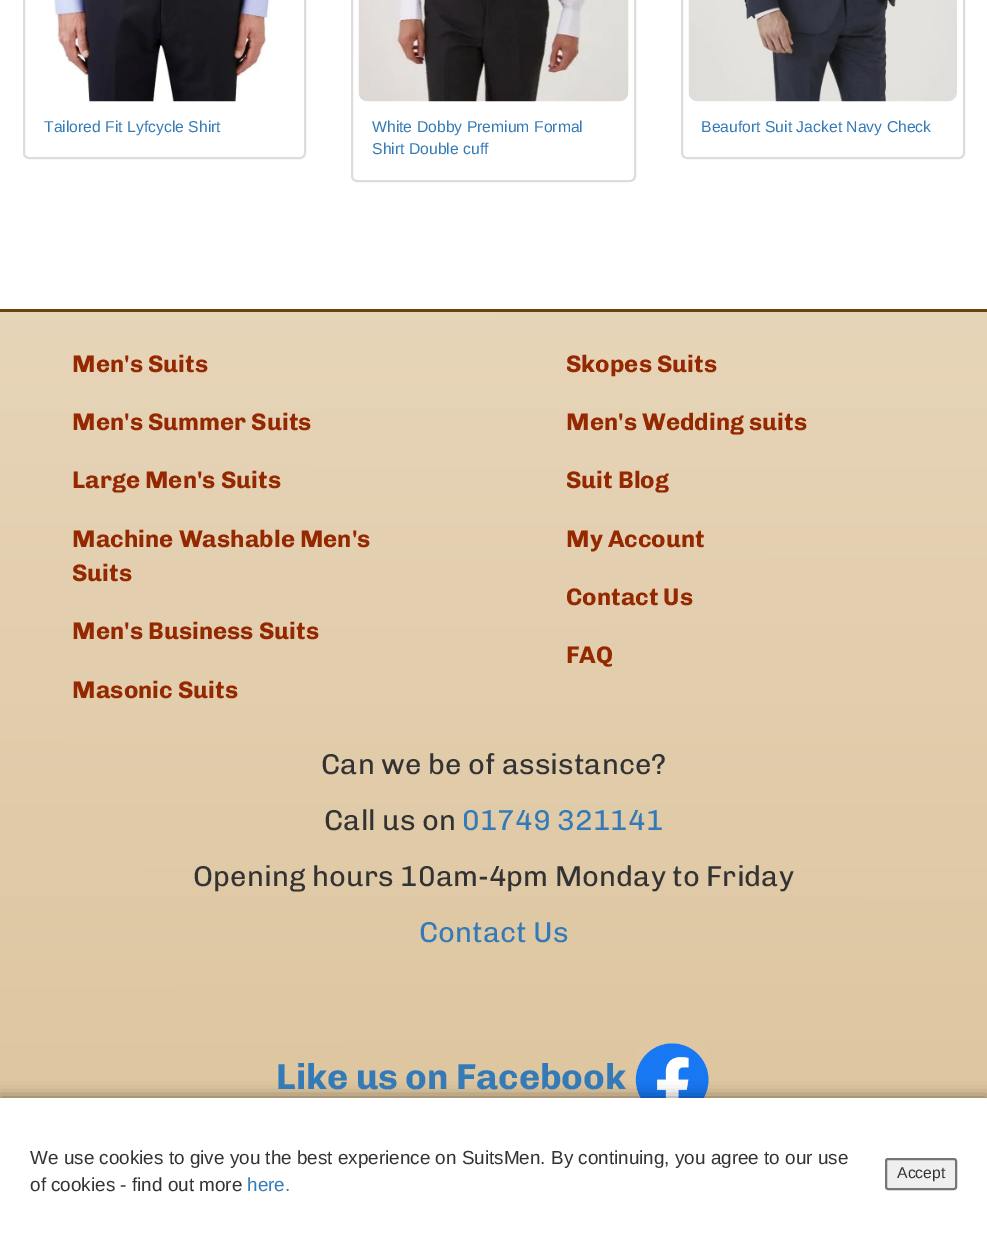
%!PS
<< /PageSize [987 1248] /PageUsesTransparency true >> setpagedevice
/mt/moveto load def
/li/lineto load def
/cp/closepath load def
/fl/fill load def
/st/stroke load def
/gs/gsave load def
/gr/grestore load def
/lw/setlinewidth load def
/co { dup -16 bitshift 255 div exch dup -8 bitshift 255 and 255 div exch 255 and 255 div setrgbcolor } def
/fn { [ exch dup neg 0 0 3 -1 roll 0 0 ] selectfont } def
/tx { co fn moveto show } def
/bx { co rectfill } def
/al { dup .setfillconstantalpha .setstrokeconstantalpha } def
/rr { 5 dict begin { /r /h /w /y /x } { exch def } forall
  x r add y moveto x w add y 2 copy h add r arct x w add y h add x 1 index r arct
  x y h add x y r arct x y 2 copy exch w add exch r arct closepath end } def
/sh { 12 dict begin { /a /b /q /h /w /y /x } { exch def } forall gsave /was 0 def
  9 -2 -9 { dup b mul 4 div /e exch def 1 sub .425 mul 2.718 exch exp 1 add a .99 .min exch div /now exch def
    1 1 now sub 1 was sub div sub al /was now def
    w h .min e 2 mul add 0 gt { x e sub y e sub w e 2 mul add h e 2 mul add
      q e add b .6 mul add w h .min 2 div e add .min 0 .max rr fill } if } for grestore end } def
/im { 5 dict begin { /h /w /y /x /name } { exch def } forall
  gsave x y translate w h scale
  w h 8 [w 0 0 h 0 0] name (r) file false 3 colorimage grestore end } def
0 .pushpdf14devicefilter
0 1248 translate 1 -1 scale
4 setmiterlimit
0 0 987 1248 16#FFFFFF bx
16#DDDDDD co
2 lw
24 -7 281 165 5 rr st
(media/1.raw) 54 0 218 102 im
352 -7 283 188 5 rr st
(media/2.raw) 358 0 271 102 im
682 -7 282 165 5 rr st
(media/3.raw) 688 0 269 102 im
gs 0 312 mt 987 312 li 987 1098 li 0 1098 li cp clip newpath
<< /ShadingType 2 /ColorSpace /DeviceRGB /Coords [493 312 494 1248] /Extend [true true] /Function << /FunctionType 2 /Domain [0 1] /C0 [.906 .835 .725] /C1 [.863 .765 .608] /N 1 >> >> shfill gr
0 309 987 3 16#6A4308 bx
(media/4.raw) 635 1043 74 55 im
16#000000 co
0 1098 987 150 0 7.5 .5 sh
0 1098 987 150 16#FFFFFF bx
16#EFEFEF co
886 1159 70 30 2 rr gs fl gr
16#767676 co
st
(Tailored Fit Lyfcycle Shirt) 44 132 /LiberationSans-Regular 15.75 16#337AB7 tx
(White Dobby Premium Formal) 372 132 /LiberationSans-Regular 15.75 16#337AB7 tx
(Shirt Double cuff) 372 154 /LiberationSans-Regular 15.75 16#337AB7 tx
(Beaufort Suit Jacket Navy Check) 701 132 /LiberationSans-Regular 15.75 16#337AB7 tx
(Men's Suits) 72 372 /Chivo-Bold 24 16#942800 tx
(Men's Summer Suits) 72 430 /Chivo-Bold 24 16#942800 tx
(Large Men's Suits) 72 488 /Chivo-Bold 24 16#942800 tx
(Skopes Suits) 566 372 /Chivo-Bold 24 16#942800 tx
(Men's Wedding suits) 566 430 /Chivo-Bold 24 16#942800 tx
(Suit Blog) 566 488 /Chivo-Bold 24 16#942800 tx
(Machine Washable Men's) 72 547 /Chivo-Bold 24 16#942800 tx
(Suits) 72 581 /Chivo-Bold 24 16#942800 tx
(Men's Business Suits) 72 639 /Chivo-Bold 24 16#942800 tx
(Masonic Suits) 72 698 /Chivo-Bold 24 16#942800 tx
(My Account) 566 547 /Chivo-Bold 24 16#942800 tx
(Contact Us) 566 605 /Chivo-Bold 24 16#942800 tx
(FAQ) 566 663 /Chivo-Bold 24 16#942800 tx
(Can we be of assistance?) 321 774 /Chivo-Regular 28.8 16#333333 tx
(Call us on) 324 830 /Chivo-Regular 28.8 16#333333 tx
(01749 321141) 462 830 /Chivo-Regular 28.8 16#337AB7 tx
(Opening hours 10am-4pm Monday to Friday) 193 886 /Chivo-Regular 28.8 16#333333 tx
(Contact Us) 419 942 /Chivo-Regular 28.8 16#337AB7 tx
(Like us on Facebook) 276 1089 /Chivo-Bold 36 16#337AB7 tx
(We use cookies to give you the best experience on SuitsMen. By continuing, you agree to our use) 30 1164 /LiberationSans-Regular 18.9 16#333333 tx
(of cookies - find out more) 30 1191 /LiberationSans-Regular 18.9 16#333333 tx
(here.) 247 1191 /LiberationSans-Regular 18.9 16#337AB7 tx
(Accept) 897 1178 /LiberationSans-Regular 15.75 16#333333 tx
.poppdf14devicefilter showpage
